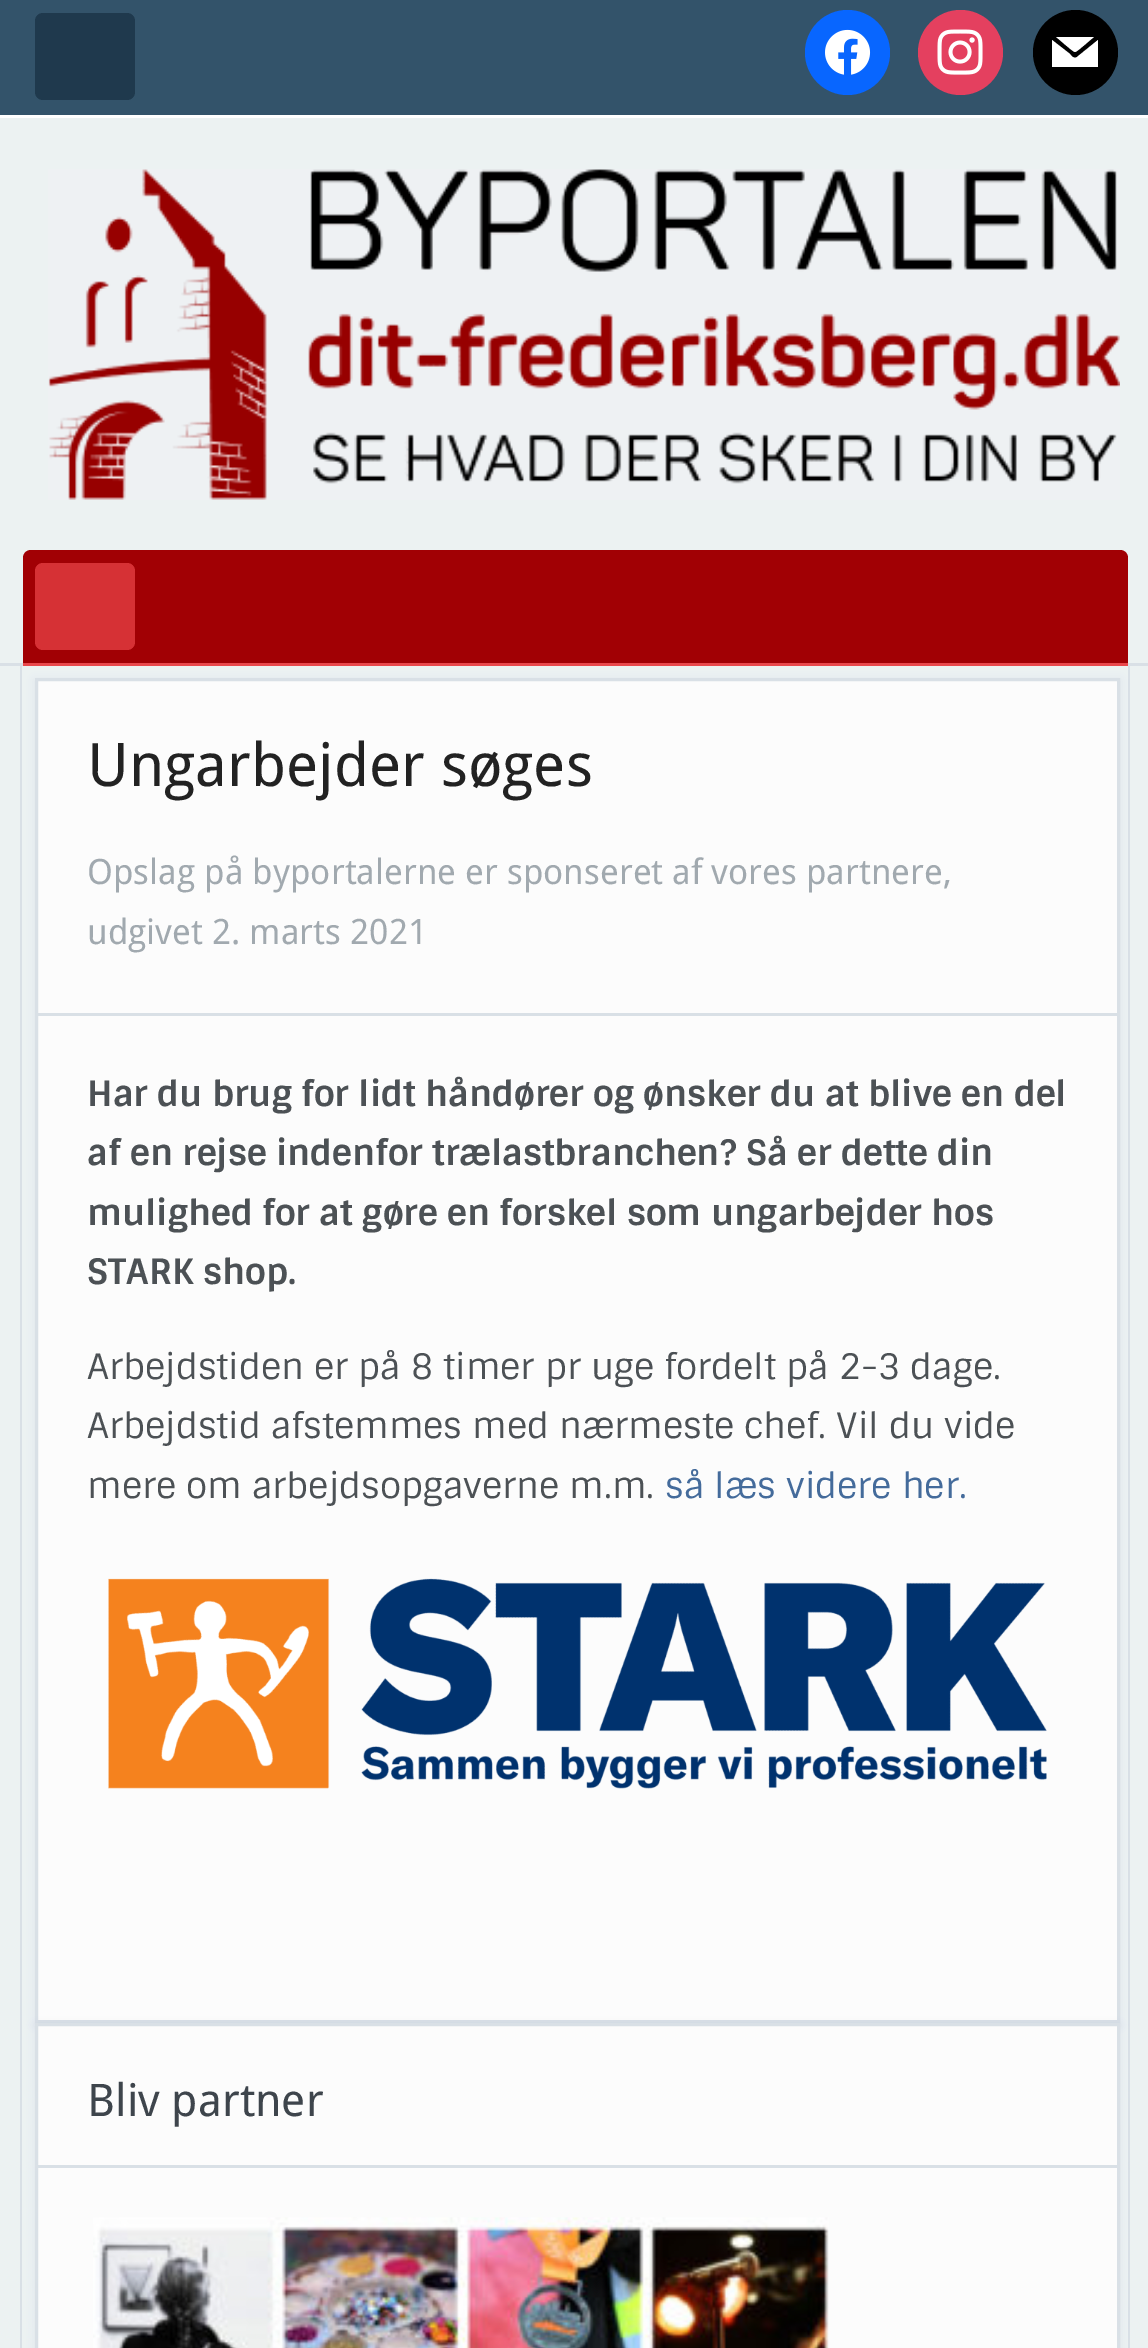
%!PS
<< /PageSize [1148 2348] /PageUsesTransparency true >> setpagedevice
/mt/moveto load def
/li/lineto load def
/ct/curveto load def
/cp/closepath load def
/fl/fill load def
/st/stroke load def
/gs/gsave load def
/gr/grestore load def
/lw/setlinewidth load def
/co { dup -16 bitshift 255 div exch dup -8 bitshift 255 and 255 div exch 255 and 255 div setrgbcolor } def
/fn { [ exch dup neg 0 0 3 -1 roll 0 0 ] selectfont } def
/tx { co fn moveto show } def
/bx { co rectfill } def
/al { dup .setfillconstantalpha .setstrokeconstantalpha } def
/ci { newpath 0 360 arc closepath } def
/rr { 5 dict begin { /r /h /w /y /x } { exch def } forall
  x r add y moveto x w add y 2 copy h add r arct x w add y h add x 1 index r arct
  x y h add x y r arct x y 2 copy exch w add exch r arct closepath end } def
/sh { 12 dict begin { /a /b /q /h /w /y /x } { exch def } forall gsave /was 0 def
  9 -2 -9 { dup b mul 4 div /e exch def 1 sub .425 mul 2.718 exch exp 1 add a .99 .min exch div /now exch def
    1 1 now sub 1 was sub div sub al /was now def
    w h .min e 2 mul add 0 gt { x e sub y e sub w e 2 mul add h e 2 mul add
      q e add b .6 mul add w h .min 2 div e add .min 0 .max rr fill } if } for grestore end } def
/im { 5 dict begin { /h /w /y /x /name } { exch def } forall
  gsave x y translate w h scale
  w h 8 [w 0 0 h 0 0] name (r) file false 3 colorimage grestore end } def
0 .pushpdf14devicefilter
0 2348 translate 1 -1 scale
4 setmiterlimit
0 0 1148 2348 16#ECF2F2 bx
16#D9E0E6 co
20 665 mt 1130 665 li 1130 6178 li 1130 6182 1127 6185 1122 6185 ct 28 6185 li 23 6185 20 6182 20 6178 ct cp 22 665 mt 1128 665 li 1128 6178 li 1128 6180 1125 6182 1122 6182 ct 28 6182 li 25 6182 22 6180 22 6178 ct cp eofill
0 663 1148 3 16#D9E0E6 bx
0 0 1148 115 16#33536A bx
0 115 1148 3 16#FFFFFF bx
16#1F394D co
35 13 100 87 8 rr fl
16#0866FF co
847.5 52.5 42.5 ci fl
(media/1.raw) 825 29 46 46 im
16#E4405F co
960.5 52.5 42.5 ci fl
(media/2.raw) 937 29 46 46 im
16#000000 co
1075.5 52.5 42.5 ci fl
16#FFFFFF co
1077 57 mt 1074 59 1071 56 1070 54 ct 1052 40 li 1052 67 li 1098 67 li 1098 40 li cp 1075 52 mt 1077 52 1091 39 1094 37 ct 1056 37 li 1059 39 1073 52 1075 52 ct cp fl
(media/3.raw) 48 169 1072 331 im
16#A10004 co
31 550 mt 1120 550 li 1124.5 550 1128 553.5 1128 558 ct 1128 665 li 23 665 li 23 558 li 23 553.5 26.5 550 31 550 ct cp fl
23 663 1105 3 16#E9484C bx
16#D63135 co
35 563 100 87 8 rr fl
16#4A5F74 co
35 680 1085 1345 0 4 .08 sh
16#FCFCFC co
36.5 679.5 mt 1118.5 679.5 li 1118.5 2021.5 li 36.5 2021.5 li cp gs fl gr
16#D9E0E6 co
3 lw
st
38 1013 1080 3 16#D9E0E6 bx
(media/4.raw) 108 1578 939 211 im
16#4A5F74 co
35 2025 1085 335 0 4 .08 sh
16#FCFCFC co
36.5 2024.5 mt 1118.5 2024.5 li 1118.5 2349.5 li 36.5 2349.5 li cp gs fl gr
16#D9E0E6 co
st
38 2165 1080 3 16#D9E0E6 bx
(media/5.raw) 93 2217 736 131 im
(Ungarbejder søges) 87 786 /DroidSans-Regular 60 16#222222 tx
(Opslag på byportalerne er sponseret af vores partnere,) 87 884 /DroidSans-Regular 35 16#A1A9AF tx
(udgivet 2. marts 2021) 87 944 /DroidSans-Regular 35 16#A1A9AF tx
(Har du brug for lidt håndører og ønsker du at blive en del) 87 1106 /Sintony-Bold 35 16#4C5155 tx
(af en rejse indenfor trælastbranchen? Så er dette din) 87 1165 /Sintony-Bold 35 16#4C5155 tx
(mulighed for at gøre en forskel som ungarbejder hos) 87 1225 /Sintony-Bold 35 16#4C5155 tx
(STARK shop.) 87 1284 /Sintony-Bold 35 16#4C5155 tx
(Arbejdstiden er på 8 timer pr uge fordelt på 2-3 dage.) 87 1379 /Sintony-Regular 35 16#4C5155 tx
(Arbejdstid afstemmes med nærmeste chef. Vil du vide) 87 1438 /Sintony-Regular 35 16#4C5155 tx
(mere om arbejdsopgaverne m.m.) 87 1498 /Sintony-Regular 35 16#4C5155 tx
(så læs videre her.) 665 1498 /Sintony-Regular 35 16#446B9B tx
(Bliv partner) 87 2116 /DroidSans-Regular 45 16#3E454C tx
.poppdf14devicefilter showpage
